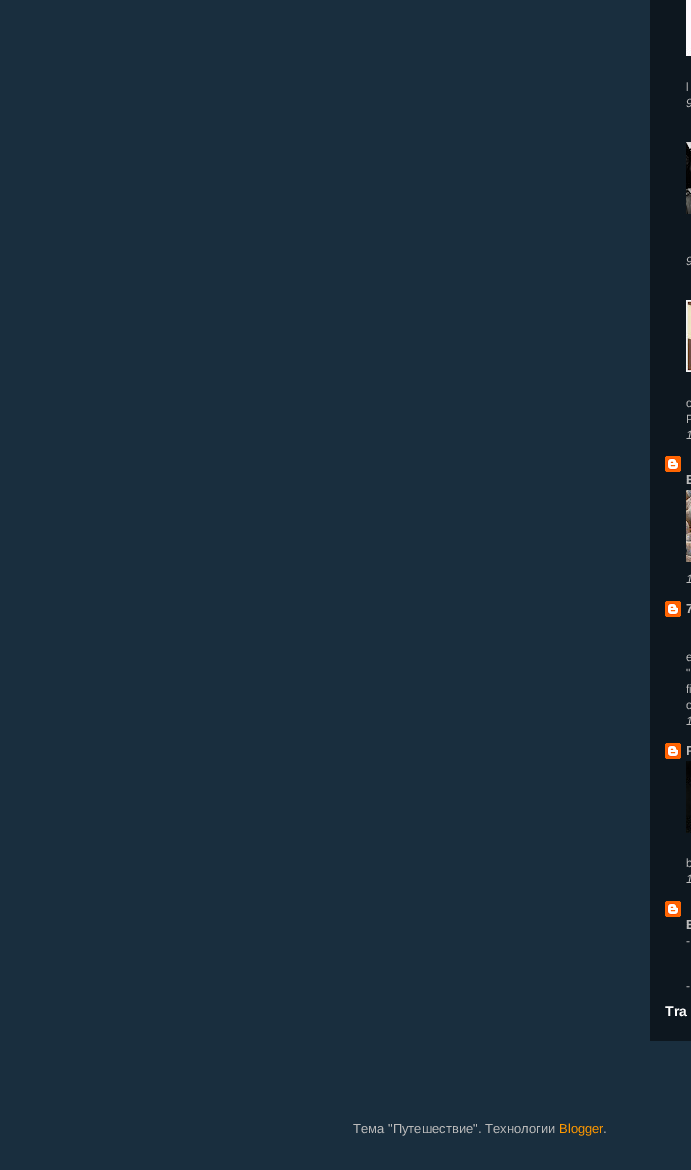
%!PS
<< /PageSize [691 1170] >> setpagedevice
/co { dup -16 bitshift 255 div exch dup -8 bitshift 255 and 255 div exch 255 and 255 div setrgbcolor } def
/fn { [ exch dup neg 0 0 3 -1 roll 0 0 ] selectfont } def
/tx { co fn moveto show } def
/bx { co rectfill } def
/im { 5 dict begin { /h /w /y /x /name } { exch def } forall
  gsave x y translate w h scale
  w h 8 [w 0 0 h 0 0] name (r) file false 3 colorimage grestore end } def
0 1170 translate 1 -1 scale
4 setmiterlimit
0 0 691 1170 16#192E3E bx
650 0 41 1041 16#0D171F bx
(media/1.raw) 686 0 5 56 im
(media/2.raw) 686 142 5 72 im
(media/3.raw) 686 300 5 72 im
(media/4.raw) 665 456 16 16 im
(media/5.raw) 686 490 5 72 im
(media/4.raw) 665 601 16 16 im
(media/4.raw) 665 743 16 16 im
(media/6.raw) 686 761 5 72 im
(media/4.raw) 665 901 16 16 im
(l) 686 91 /LiberationSans-Regular 12 16#BBBBBB tx
(9) 686 107 /LiberationSans-Italic 12 16#BBBBBB tx
(9) 686 265 /LiberationSans-Italic 12 16#BBBBBB tx
(o) 686 407 /LiberationSans-Regular 12 16#BBBBBB tx
(P) 686 423 /LiberationSans-Regular 12 16#BBBBBB tx
(1) 686 439 /LiberationSans-Italic 12 16#BBBBBB tx
(E) 686 484 /LiberationSans-Bold 13 16#BBBBBB tx
(1) 686 583 /LiberationSans-Italic 12 16#BBBBBB tx
(7) 686 613 /LiberationSans-Bold 13 16#BBBBBB tx
(e) 686 661 /LiberationSans-Regular 12 16#BBBBBB tx
(") 686 677 /LiberationSans-Regular 12 16#BBBBBB tx
(fi) 686 693 /LiberationSans-Regular 12 16#BBBBBB tx
(o) 686 709 /LiberationSans-Regular 12 16#BBBBBB tx
(1) 686 725 /LiberationSans-Italic 12 16#BBBBBB tx
(P) 686 755 /LiberationSans-Bold 13 16#BBBBBB tx
(b) 686 867 /LiberationSans-Regular 12 16#BBBBBB tx
(1) 686 883 /LiberationSans-Italic 12 16#BBBBBB tx
(E) 686 929 /LiberationSans-Bold 13 16#BBBBBB tx
(-) 686 945 /LiberationSans-Regular 12 16#BBBBBB tx
(-) 686 990 /LiberationSans-Regular 12 16#BBBBBB tx
(Tra) 665 1016 /LiberationSans-Bold 14 16#FFFFFF tx
(Тема "Путешествие". Технологии) 353 1133 /LiberationSans-Regular 13 16#BBBBBB tx
(Blogger) 559 1133 /LiberationSans-Regular 13 16#FF9900 tx
(.) 603 1133 /LiberationSans-Regular 13 16#BBBBBB tx
showpage
